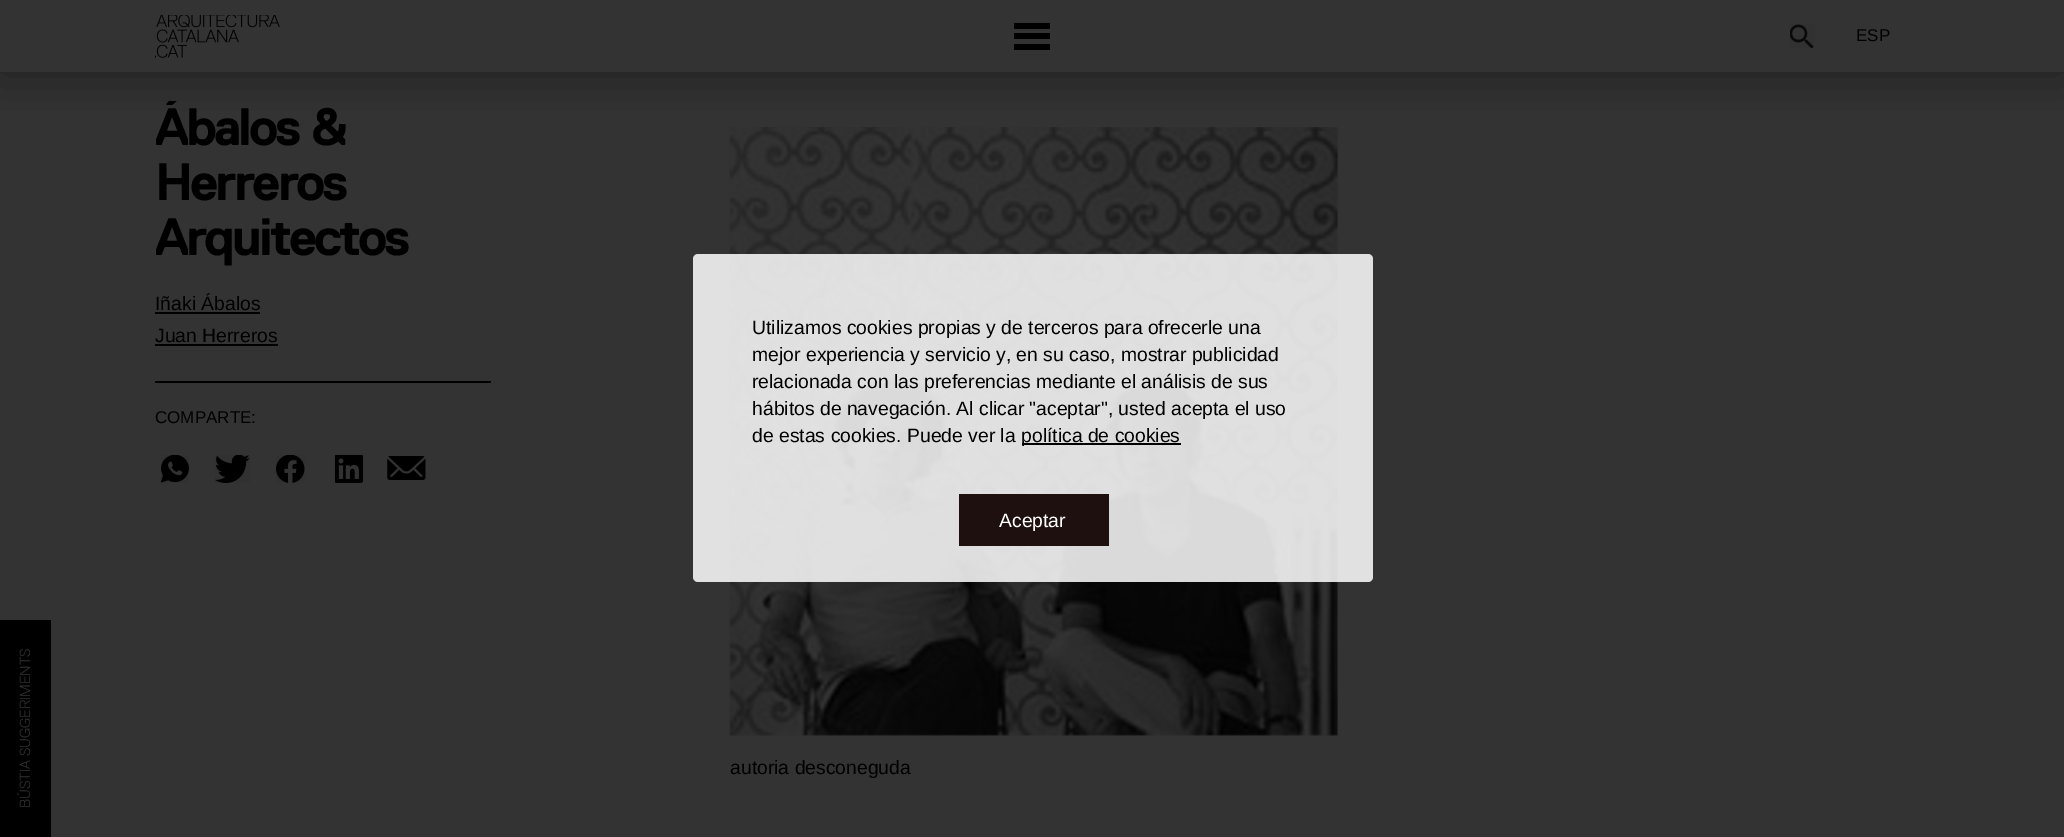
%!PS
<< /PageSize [2064 837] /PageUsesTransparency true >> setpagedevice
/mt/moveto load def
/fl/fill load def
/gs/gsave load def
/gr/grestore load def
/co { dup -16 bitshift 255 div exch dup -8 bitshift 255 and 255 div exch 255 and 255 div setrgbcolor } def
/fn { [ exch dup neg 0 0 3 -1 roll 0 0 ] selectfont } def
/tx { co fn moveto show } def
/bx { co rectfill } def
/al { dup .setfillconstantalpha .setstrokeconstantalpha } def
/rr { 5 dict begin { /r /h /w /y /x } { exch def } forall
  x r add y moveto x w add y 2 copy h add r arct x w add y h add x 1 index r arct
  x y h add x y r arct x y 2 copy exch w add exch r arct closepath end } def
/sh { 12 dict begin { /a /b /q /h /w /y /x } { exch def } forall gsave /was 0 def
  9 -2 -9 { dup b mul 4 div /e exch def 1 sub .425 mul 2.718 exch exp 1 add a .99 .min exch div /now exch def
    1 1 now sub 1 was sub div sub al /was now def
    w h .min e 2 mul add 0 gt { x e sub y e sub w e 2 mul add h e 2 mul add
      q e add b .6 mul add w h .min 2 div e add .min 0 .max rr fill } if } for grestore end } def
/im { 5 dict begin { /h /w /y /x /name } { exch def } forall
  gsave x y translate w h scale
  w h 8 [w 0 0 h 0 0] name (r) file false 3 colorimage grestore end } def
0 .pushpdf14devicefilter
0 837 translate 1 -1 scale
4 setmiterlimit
0 0 2064 837 16#333333 bx
(media/8.raw) 729 127 609 609 im
gs
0 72 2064 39 rectclip
16#000000 co
0 0 2064 72 0 24 .4 sh
gr
(media/1.raw) 155 15 125 43 im
1014 33 36 6 16#000000 bx
1014 23 36 6 16#000000 bx
1014 44 36 6 16#000000 bx
(media/2.raw) 1790 24 24 24 im
0 620 51 217 16#000000 bx
155 312 105 2 16#000000 bx
155 344 123 2 16#000000 bx
155 381 336 2 16#000000 bx
(media/3.raw) 161 455 28 28 im
(media/4.raw) 215 455 35 28 im
(media/5.raw) 276 455 29 28 im
(media/6.raw) 335 455 28 28 im
(media/7.raw) 387 456 39 24 im
0.85 al
16#FFFFFF co
693 254 680 328 5 rr fl
1 al
1022 443 159 2 16#000000 bx
959 494 150 52 16#1F1010 bx
(ESP) 1856 41 /LiberationSans-Regular 17 16#000000 tx
/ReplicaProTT-Light 14.5 fn
16#333333 co
gs 30 808 translate -90 rotate 0 0 mt (BÚSTIA SUGGERIMENTS) show gr
gs
155 101 336 168 rectclip
/ReplicaProTT-Bold 52.5 fn
16#000000 co
155 145 mt -3.1 0 (Ábalos &) ashow
gr
/ReplicaProTT-Bold 52.5 fn
16#000000 co
155 200 mt -3.1 0 (Herreros) ashow
155 255 mt -3.1 0 (Arquitectos) ashow
(Iñaki Ábalos) 155 310 /LiberationSans-Regular 19.35 16#000000 tx
(Juan Herreros) 155 342 /LiberationSans-Regular 19.35 16#000000 tx
(COMPARTE:) 155 423 /LiberationSans-Regular 17 16#000000 tx
(autoria desconeguda) 730 774 /LiberationSans-Regular 19.35 16#000000 tx
(Utilizamos cookies propias y de terceros para ofrecerle una) 752 334 /LiberationSans-Regular 19.35 16#000000 tx
(mejor experiencia y servicio y, en su caso, mostrar publicidad) 752 361 /LiberationSans-Regular 19.35 16#000000 tx
(relacionada con las preferencias mediante el análisis de sus) 752 388 /LiberationSans-Regular 19.35 16#000000 tx
(hábitos de navegación. Al clicar "aceptar", usted acepta el uso) 752 415 /LiberationSans-Regular 19.35 16#000000 tx
(de estas cookies. Puede ver la) 752 442 /LiberationSans-Regular 19.35 16#000000 tx
(política de cookies) 1021 442 /LiberationSans-Regular 19.35 16#000000 tx
(Aceptar) 999 527 /LiberationSans-Regular 19.35 16#FFFFFF tx
.poppdf14devicefilter showpage
